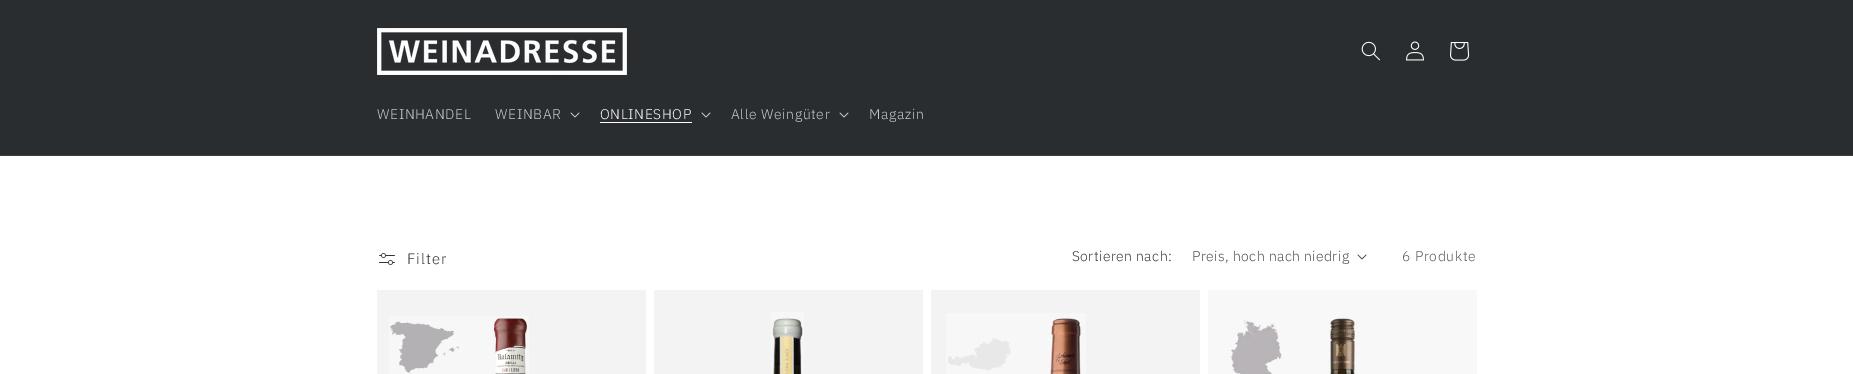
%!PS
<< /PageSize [1853 374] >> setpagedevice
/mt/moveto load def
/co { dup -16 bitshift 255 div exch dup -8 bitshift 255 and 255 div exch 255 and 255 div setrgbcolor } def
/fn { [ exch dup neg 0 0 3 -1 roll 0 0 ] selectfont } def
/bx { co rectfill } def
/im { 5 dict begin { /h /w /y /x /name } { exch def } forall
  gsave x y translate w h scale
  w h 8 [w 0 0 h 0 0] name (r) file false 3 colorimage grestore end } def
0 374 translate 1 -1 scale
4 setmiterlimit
0 0 1853 374 16#FFFFFF bx
0 0 1853 155 16#292D30 bx
0 155 1853 1 16#3A3E41 bx
(media/1.raw) 377 28 250 47 im
(media/2.raw) 1361 41 19 20 im
(media/3.raw) 1406 41 18 20 im
(media/4.raw) 1450 42 20 19 im
(media/5.raw) 570 112 10 6 im
600 122 92 1 16#FFFFFF bx
(media/5.raw) 701 112 10 6 im
(media/5.raw) 839 112 10 6 im
(media/6.raw) 379 253 16 12 im
(media/7.raw) 1357 254 10 6 im
377 290 269 84 16#F3F3F3 bx
(media/8.raw) 389 316 140 58 im
654 290 269 84 16#F3F3F3 bx
(media/9.raw) 771 312 33 62 im
931 290 269 84 16#F3F3F3 bx
(media/10.raw) 946 313 140 61 im
(media/11.raw) 1208 290 269 84 im
/IBMPlexSans-Light 14 fn
16#CACBCB co
377 119 mt .6 0 (WEINHANDEL) ashow
495 119 mt .6 0 (WEINBAR) ashow
16#FFFFFF co
600 119 mt .6 0 (ONLINESHOP) ashow
16#CACBCB co
731 119 mt .6 0 (Alle Weingüter) ashow
869 119 mt .6 0 (Magazin) ashow
/IBMPlexSans-Light 15 fn
16#363636 co
407 264 mt 1 0 (Filter) ashow
/IBMPlexSans-Light 14 fn
1072 261 mt .4 0 (Sortieren nach:) ashow
16#4D4D4D co
1192 261 mt .4 0 (Preis, hoch nach niedrig) ashow
16#595959 co
1402 261 mt .6 0 (6 Produkte) ashow
showpage
